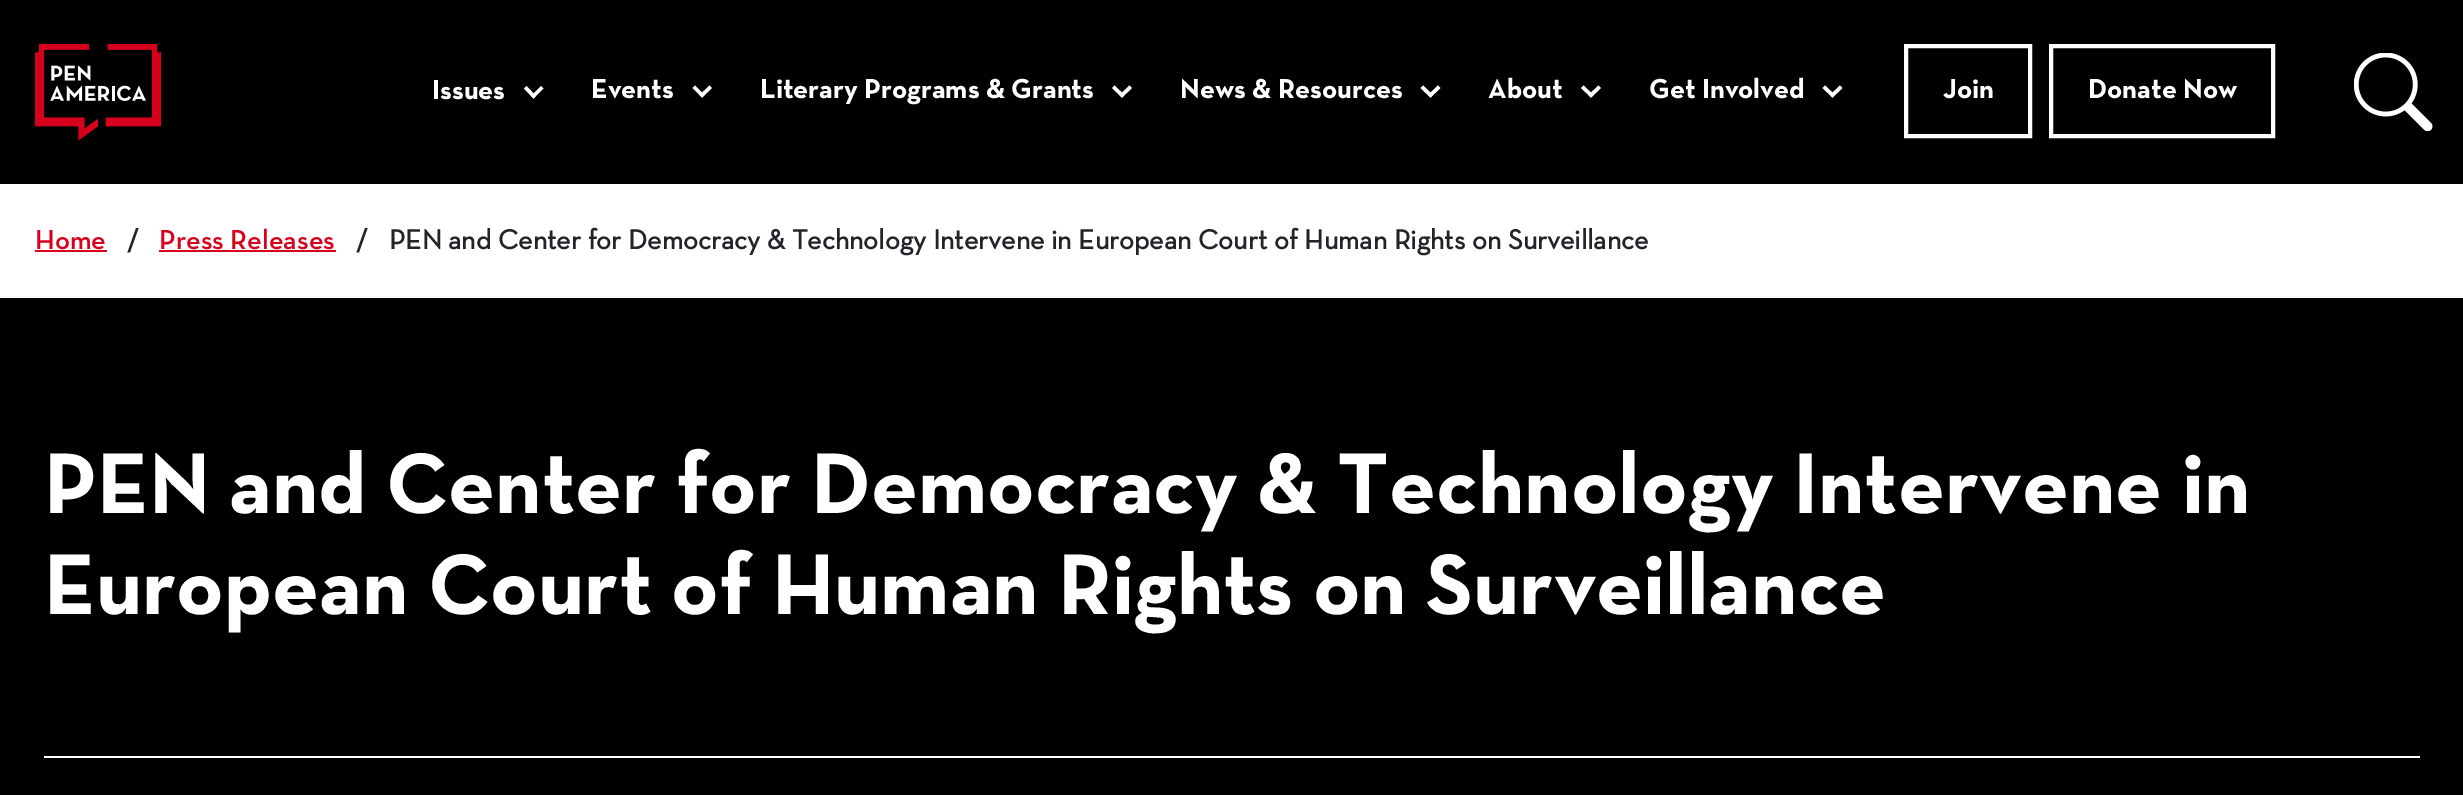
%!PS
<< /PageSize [2463 795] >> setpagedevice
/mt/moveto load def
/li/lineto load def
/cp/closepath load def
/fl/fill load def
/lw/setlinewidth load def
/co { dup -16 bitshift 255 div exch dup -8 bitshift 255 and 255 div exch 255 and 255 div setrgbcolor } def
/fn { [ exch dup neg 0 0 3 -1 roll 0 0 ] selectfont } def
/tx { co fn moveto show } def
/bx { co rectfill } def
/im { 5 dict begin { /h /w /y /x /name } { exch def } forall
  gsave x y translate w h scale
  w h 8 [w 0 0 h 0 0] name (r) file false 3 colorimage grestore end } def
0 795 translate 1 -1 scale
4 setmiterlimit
0 0 2463 795 16#FFFFFF bx
0 0 2463 184 16#000000 bx
(media/1.raw) 35 44 126 96 im
16#FFFFFF co
541 86 mt 543.5 88.5 li 533.5 98.5 li 531 96 li cp fl
526.5 86 mt 536 96 li 533.5 98.5 li 524 88.5 li cp fl
709.5 85.5 mt 712 88 li 702 97.5 li 699.5 95 li cp fl
695 85.5 mt 704.5 95 li 702 97.5 li 692.5 88 li cp fl
1129.5 85.5 mt 1132 88 li 1122 97.5 li 1119.5 95 li cp fl
1114.5 85.5 mt 1124.5 95 li 1122 97.5 li 1112 88 li cp fl
1438 85.5 mt 1440.5 88 li 1430.5 97.5 li 1428 95 li cp fl
1423 85.5 mt 1433 95 li 1430.5 97.5 li 1420.5 88 li cp fl
1598.5 85.5 mt 1601 88 li 1591 97.5 li 1588.5 95 li cp fl
1583.5 85.5 mt 1593.5 95 li 1591 97.5 li 1581 88 li cp fl
1840 85.5 mt 1842.5 88 li 1832.5 97.5 li 1830 95 li cp fl
1825 85.5 mt 1835 95 li 1832.5 97.5 li 1822.5 88 li cp fl
4 lw
1906 46 124 90 rectstroke
2051 46 222 90 rectstroke
(media/2.raw) 2354 53 79 78 im
0 298 2463 497 16#000000 bx
35 250 72 2 16#D6001C bx
159 250 177 2 16#D6001C bx
44 756 2376 2 16#FFFFFF bx
(Issues) 432 99 /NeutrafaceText-Bold 28 16#FFFFFF tx
(Events) 591 98 /NeutrafaceText-Bold 28 16#FFFFFF tx
(Literary Programs & Grants) 760 98 /NeutrafaceText-Bold 28 16#FFFFFF tx
(News & Resources) 1180 98 /NeutrafaceText-Bold 28 16#FFFFFF tx
(About) 1488 98 /NeutrafaceText-Bold 28 16#FFFFFF tx
(Get Involved) 1649 98 /NeutrafaceText-Bold 28 16#FFFFFF tx
(Join) 1943 98 /NeutrafaceText-Bold 28 16#FFFFFF tx
(Donate Now) 2088 98 /NeutrafaceText-Bold 28 16#FFFFFF tx
(Home) 35 249 /NeutrafaceText-SemiBold 28 16#D6001C tx
(/) 127 249 /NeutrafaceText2-Bold 28 16#212529 tx
(Press Releases) 159 249 /NeutrafaceText-SemiBold 28 16#D6001C tx
(/) 356 249 /NeutrafaceText2-Bold 28 16#212529 tx
(PEN and Center for Democracy & Technology Intervene in European Court of Human Rights on Surveillance) 389 249 /NeutrafaceText2-Bold 28 16#212529 tx
(PEN and Center for Democracy & Technology Intervene in) 44 513 /NeutrafaceText-Bold 87.5 16#FFFFFF tx
(European Court of Human Rights on Surveillance) 44 614 /NeutrafaceText-Bold 87.5 16#FFFFFF tx
showpage
